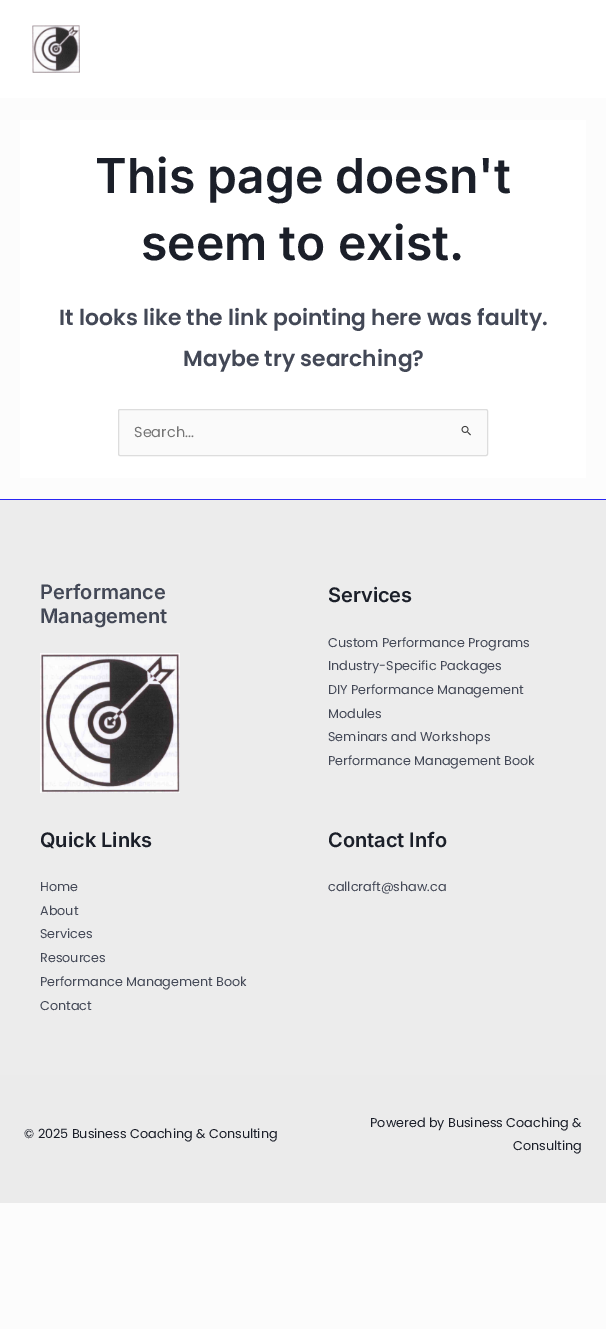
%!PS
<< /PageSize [606 1329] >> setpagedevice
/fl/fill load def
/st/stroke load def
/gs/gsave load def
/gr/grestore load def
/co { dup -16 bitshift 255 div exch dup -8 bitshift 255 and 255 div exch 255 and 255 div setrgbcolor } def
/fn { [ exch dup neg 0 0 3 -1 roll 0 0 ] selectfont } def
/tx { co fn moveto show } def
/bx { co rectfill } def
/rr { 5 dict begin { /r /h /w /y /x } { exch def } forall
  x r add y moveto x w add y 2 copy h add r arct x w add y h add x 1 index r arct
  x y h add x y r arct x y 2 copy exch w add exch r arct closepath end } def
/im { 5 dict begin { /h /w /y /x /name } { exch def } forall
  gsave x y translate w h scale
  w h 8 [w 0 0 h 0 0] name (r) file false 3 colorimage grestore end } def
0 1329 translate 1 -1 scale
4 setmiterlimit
0 0 606 1329 16#FCFCFC bx
0 0 606 98 16#FFFFFF bx
(media/1.raw) 32 25 48 48 im
20 120 566 358 16#FFFFFF bx
16#FAFAFA co
118.5 409.5 369 46 1.5 rr gs fl gr
16#DDDDDD co
st
(media/2.raw) 461 425 10 11 im
0 500 606 575 16#ECECEC bx
0 499 606 1 16#2925F4 bx
(media/3.raw) 40 653 140 140 im
0 1075 606 128 16#EBEBEB bx
(This page doesn't) 95 193 /Inter-SemiBold 48 16#1B1F29 tx
(seem to exist.) 141 260 /Inter-SemiBold 48 16#1B1F29 tx
(It looks like the link pointing here was faulty.) 59 325 /Poppins-SemiBold 21.9 16#434856 tx
(Maybe try searching?) 183 366 /Poppins-SemiBold 21.9 16#434856 tx
(Search...) 134 437 /Poppins-Regular 14.5 16#757575 tx
(Performance) 40 599 /Inter-SemiBold 20 16#434856 tx
(Management) 40 623 /Inter-SemiBold 20 16#434856 tx
(Services) 328 602 /Inter-SemiBold 20 16#1B1F29 tx
(Custom Performance Programs) 328 647 /Poppins-Regular 12.75 16#434856 tx
(Industry-Specific Packages) 328 670 /Poppins-Regular 12.75 16#434856 tx
(DIY Performance Management) 328 694 /Poppins-Regular 12.75 16#434856 tx
(Modules) 328 718 /Poppins-Regular 12.75 16#434856 tx
(Seminars and Workshops) 328 741 /Poppins-Regular 12.75 16#434856 tx
(Performance Management Book) 328 765 /Poppins-Regular 12.75 16#434856 tx
(Quick Links) 40 847 /Inter-SemiBold 20 16#1B1F29 tx
(Home) 40 891 /Poppins-Regular 12.75 16#434856 tx
(About) 40 915 /Poppins-Regular 12.75 16#434856 tx
(Services) 40 938 /Poppins-Regular 12.75 16#434856 tx
(Resources) 40 962 /Poppins-Regular 12.75 16#434856 tx
(Performance Management Book) 40 986 /Poppins-Regular 12.75 16#434856 tx
(Contact) 40 1010 /Poppins-Regular 12.75 16#434856 tx
(Contact Info) 328 847 /Inter-SemiBold 20 16#1B1F29 tx
(callcraft@shaw.ca) 328 891 /Poppins-Regular 12.75 16#434856 tx
(© 2025 Business Coaching & Consulting) 24 1138 /Poppins-Regular 12.75 16#1B1F29 tx
(Powered by Business Coaching &) 370 1127 /Poppins-Regular 12.75 16#1B1F29 tx
(Consulting) 513 1150 /Poppins-Regular 12.75 16#1B1F29 tx
showpage
